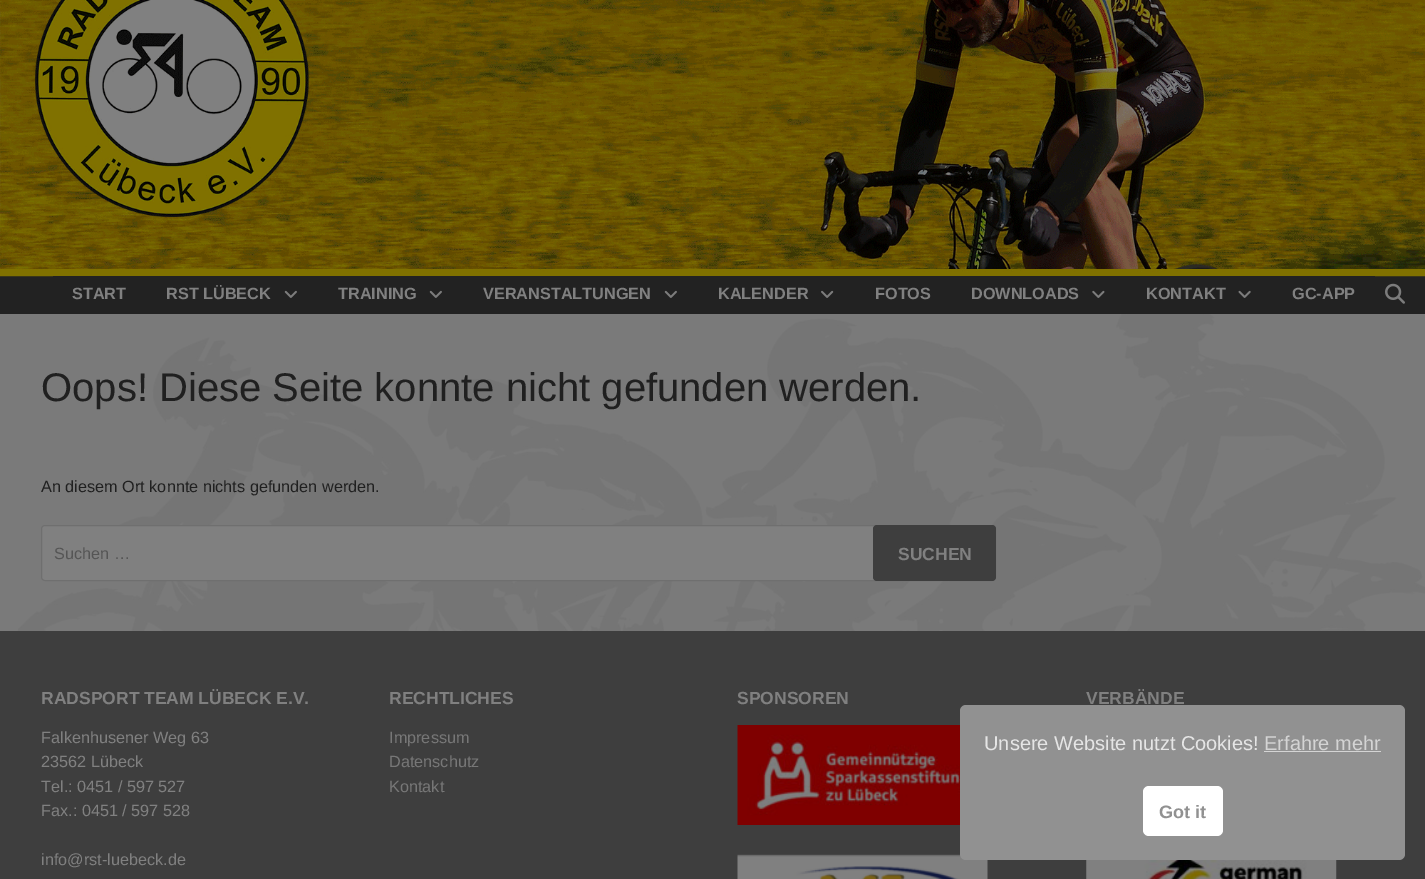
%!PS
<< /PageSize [1425 879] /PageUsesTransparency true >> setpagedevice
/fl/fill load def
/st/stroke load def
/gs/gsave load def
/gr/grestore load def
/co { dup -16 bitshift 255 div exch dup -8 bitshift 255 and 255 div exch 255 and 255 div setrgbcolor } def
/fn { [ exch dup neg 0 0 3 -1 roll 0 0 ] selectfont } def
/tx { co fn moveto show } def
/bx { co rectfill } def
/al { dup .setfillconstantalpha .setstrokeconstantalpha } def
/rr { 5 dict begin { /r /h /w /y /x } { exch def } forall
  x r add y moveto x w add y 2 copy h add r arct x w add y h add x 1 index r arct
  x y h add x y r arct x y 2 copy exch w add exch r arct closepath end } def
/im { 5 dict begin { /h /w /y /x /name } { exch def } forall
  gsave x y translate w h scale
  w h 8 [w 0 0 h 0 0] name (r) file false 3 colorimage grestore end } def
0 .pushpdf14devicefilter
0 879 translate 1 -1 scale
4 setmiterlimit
0 0 1425 879 16#FFFFFF bx
(media/1.raw) 0 314 1425 317 im
0 276 1425 38 16#222222 bx
(media/2.raw) 0 0 1425 277 im
53 276 1322 1 16#222222 bx
(media/3.raw) 284 290 13 8 im
(media/3.raw) 429 290 13 8 im
(media/3.raw) 664 290 13 8 im
(media/4.raw) 821 290 13 8 im
(media/5.raw) 1092 290 13 8 im
(media/6.raw) 1238 290 13 8 im
(media/7.raw) 1385 283 20 21 im
0.63 al
0 314 1425 317 16#777777 bx
1 al
16#808080 co
41.5 525.5 954 55 3.5 rr gs fl gr
16#6F6F6F co
st
16#3E3E3E co
873 525 123 56 4 rr fl
0 631 1425 248 16#3E3E3E bx
(media/8.raw) 737 725 223 100 im
(media/9.raw) 737 854 251 25 im
(media/10.raw) 1086 860 251 19 im
16#919191 co
960 705 445 155 6 rr fl
1264 751 117 1 16#D4D4D4 bx
16#FFFFFF co
1143 786 80 50 6 rr fl
(START) 72 299 /LiberationSans-Bold 16.25 16#808080 tx
(RST LÜBECK) 166 299 /LiberationSans-Bold 16.25 16#808080 tx
(TRAINING) 338 299 /LiberationSans-Bold 16.25 16#808080 tx
(VERANSTALTUNGEN) 483 299 /LiberationSans-Bold 16.25 16#808080 tx
(KALENDER) 718 299 /LiberationSans-Bold 16.25 16#808080 tx
(FOTOS) 875 299 /LiberationSans-Bold 16.25 16#808080 tx
(DOWNLOADS) 971 299 /LiberationSans-Bold 16.25 16#808080 tx
(KONTAKT) 1146 299 /LiberationSans-Bold 16.25 16#808080 tx
(GC-APP) 1292 299 /LiberationSans-Bold 16.25 16#808080 tx
(Oops! Diese Seite konnte nicht gefunden werden.) 41 401 /LiberationSans-Regular 40 16#202020 tx
(An diesem Ort konnte nichts gefunden werden.) 41 492 /LiberationSans-Regular 16.25 16#202020 tx
(Suchen …) 54 559 /LiberationSans-Regular 16.25 16#555555 tx
(SUCHEN) 898 560 /LiberationSans-Bold 17.5 16#808080 tx
(RADSPORT TEAM LÜBECK E.V.) 41 704 /LiberationSans-Bold 17.5 16#808080 tx
(Falkenhusener Weg 63) 41 743 /LiberationSans-Regular 16.25 16#808080 tx
(23562 Lübeck) 41 767 /LiberationSans-Regular 16.25 16#808080 tx
(Tel.: 0451 / 597 527) 41 792 /LiberationSans-Regular 16.25 16#808080 tx
(Fax.: 0451 / 597 528) 41 816 /LiberationSans-Regular 16.25 16#808080 tx
(info@rst-luebeck.de) 41 865 /LiberationSans-Regular 16.25 16#808080 tx
(RECHTLICHES) 389 704 /LiberationSans-Bold 17.5 16#808080 tx
(Impressum) 389 743 /LiberationSans-Regular 16.25 16#777777 tx
(Datenschutz) 389 767 /LiberationSans-Regular 16.25 16#777777 tx
(Kontakt) 389 792 /LiberationSans-Regular 16.25 16#777777 tx
(SPONSOREN) 737 704 /LiberationSans-Bold 17.5 16#808080 tx
(VERBÄNDE) 1086 704 /LiberationSans-Bold 17.5 16#808080 tx
(Unsere Website nutzt Cookies!) 984 750 /LiberationSans-Regular 20 16#E5E5E5 tx
(Erfahre mehr) 1264 750 /LiberationSans-Regular 20 16#D4D4D4 tx
(Got it) 1159 818 /LiberationSans-Bold 18 16#919191 tx
.poppdf14devicefilter showpage
